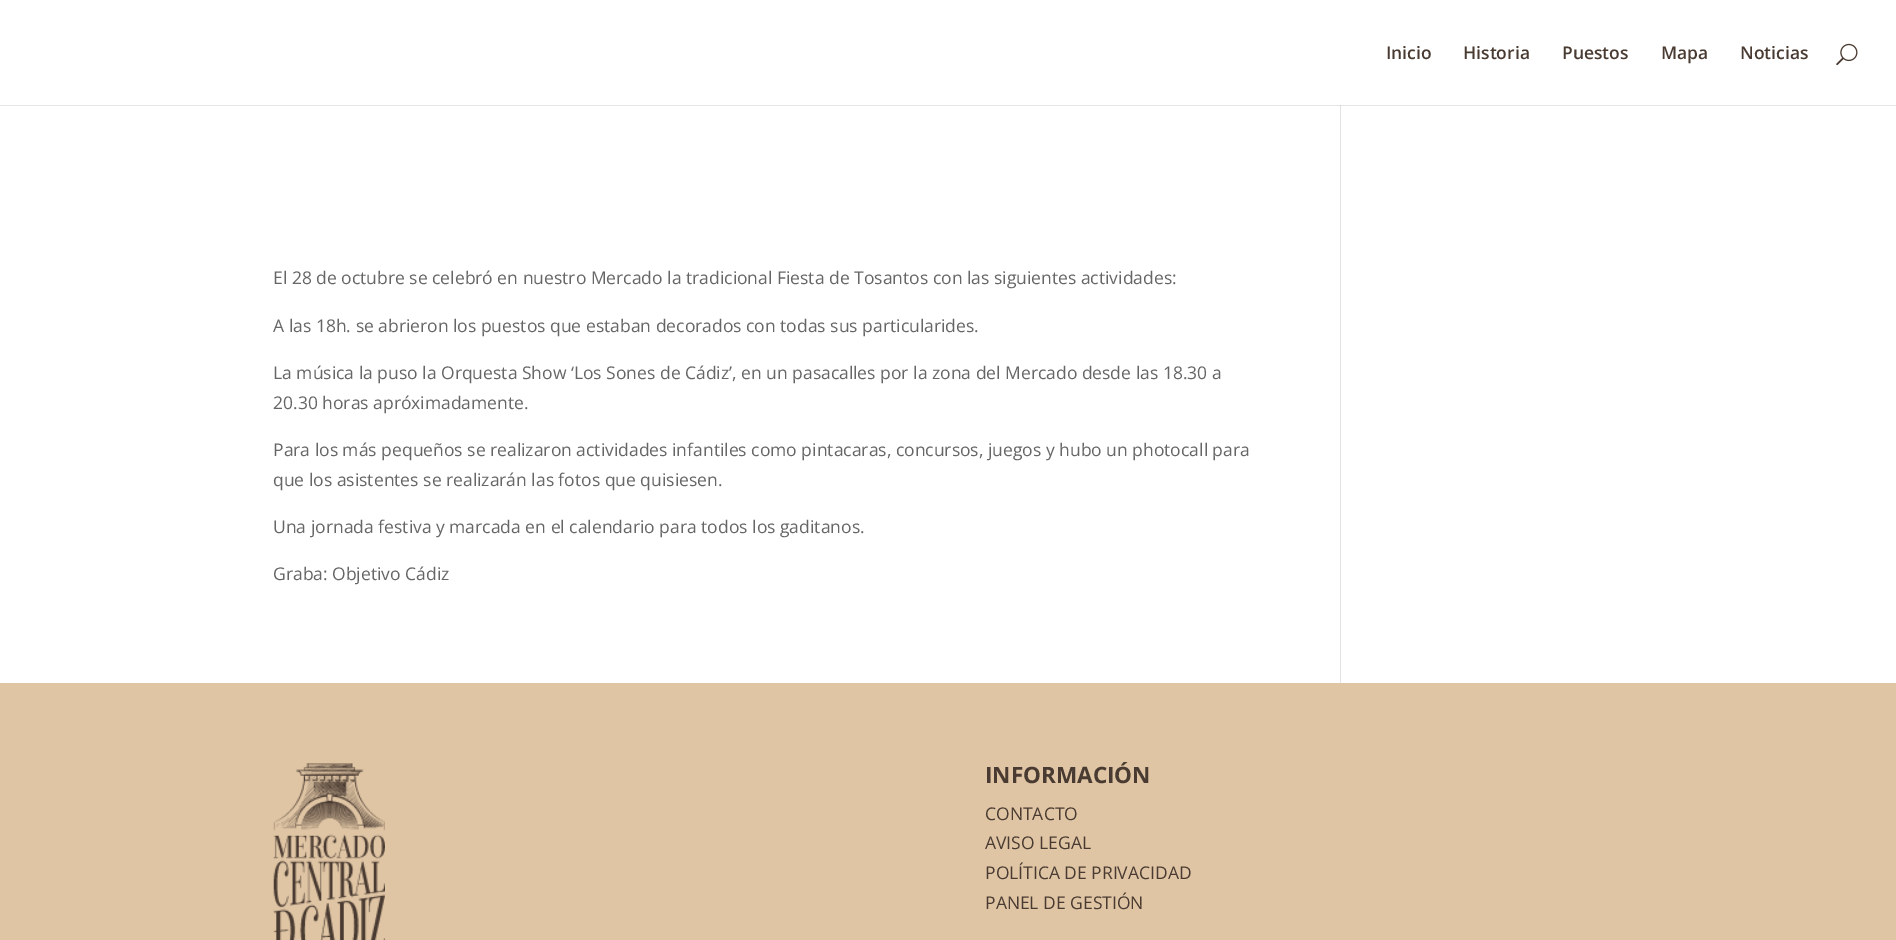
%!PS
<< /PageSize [1896 940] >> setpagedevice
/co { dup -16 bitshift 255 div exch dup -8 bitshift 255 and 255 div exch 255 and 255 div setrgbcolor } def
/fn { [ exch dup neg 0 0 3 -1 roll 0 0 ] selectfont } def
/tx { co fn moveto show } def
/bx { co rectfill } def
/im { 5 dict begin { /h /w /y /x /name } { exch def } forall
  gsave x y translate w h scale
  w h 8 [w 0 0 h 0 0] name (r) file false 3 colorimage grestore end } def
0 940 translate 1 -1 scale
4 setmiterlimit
0 0 1896 940 16#FFFFFF bx
(media/1.raw) 1836 43 22 23 im
0 105 1896 1 16#E6E6E6 bx
1340 106 1 577 16#E2E2E2 bx
1340 105 1 1 16#CBCBCB bx
0 683 1896 257 16#DFC5A4 bx
(media/2.raw) 273 763 112 177 im
(Inicio) 1386 59 /OpenSans-SemiBold 17.5 16#4A3B32 tx
(Historia) 1463 59 /OpenSans-SemiBold 17.5 16#4A3B32 tx
(Puestos) 1562 59 /OpenSans-SemiBold 17.5 16#4A3B32 tx
(Mapa) 1661 59 /OpenSans-SemiBold 17.5 16#4A3B32 tx
(Noticias) 1740 59 /OpenSans-SemiBold 17.5 16#4A3B32 tx
(El 28 de octubre se celebró en nuestro Mercado la tradicional Fiesta de Tosantos con las siguientes actividades:) 273 284 /OpenSans-Regular 17.5 16#666666 tx
(A las 18h. se abrieron los puestos que estaban decorados con todas sus particularides.) 273 332 /OpenSans-Regular 17.5 16#666666 tx
(La música la puso la Orquesta Show ‘Los Sones de Cádiz’, en un pasacalles por la zona del Mercado desde las 18.30 a) 273 379 /OpenSans-Regular 17.5 16#666666 tx
(20.30 horas apróximadamente.) 273 409 /OpenSans-Regular 17.5 16#666666 tx
(Para los más pequeños se realizaron actividades infantiles como pintacaras, concursos, juegos y hubo un photocall para) 273 456 /OpenSans-Regular 17.5 16#666666 tx
(que los asistentes se realizarán las fotos que quisiesen.) 273 486 /OpenSans-Regular 17.5 16#666666 tx
(Una jornada festiva y marcada en el calendario para todos los gaditanos.) 273 533 /OpenSans-Regular 17.5 16#666666 tx
(Graba: Objetivo Cádiz) 273 580 /OpenSans-Regular 17.5 16#666666 tx
(INFORMACIÓN) 985 783 /OpenSans-Bold 22.5 16#4A3B32 tx
(CONTACTO) 985 820 /OpenSans-Regular 17.5 16#4A3B32 tx
(AVISO LEGAL) 985 849 /OpenSans-Regular 17.5 16#4A3B32 tx
(POLÍTICA DE PRIVACIDAD) 985 879 /OpenSans-Regular 17.5 16#4A3B32 tx
(PANEL DE GESTIÓN) 985 909 /OpenSans-Regular 17.5 16#4A3B32 tx
showpage
